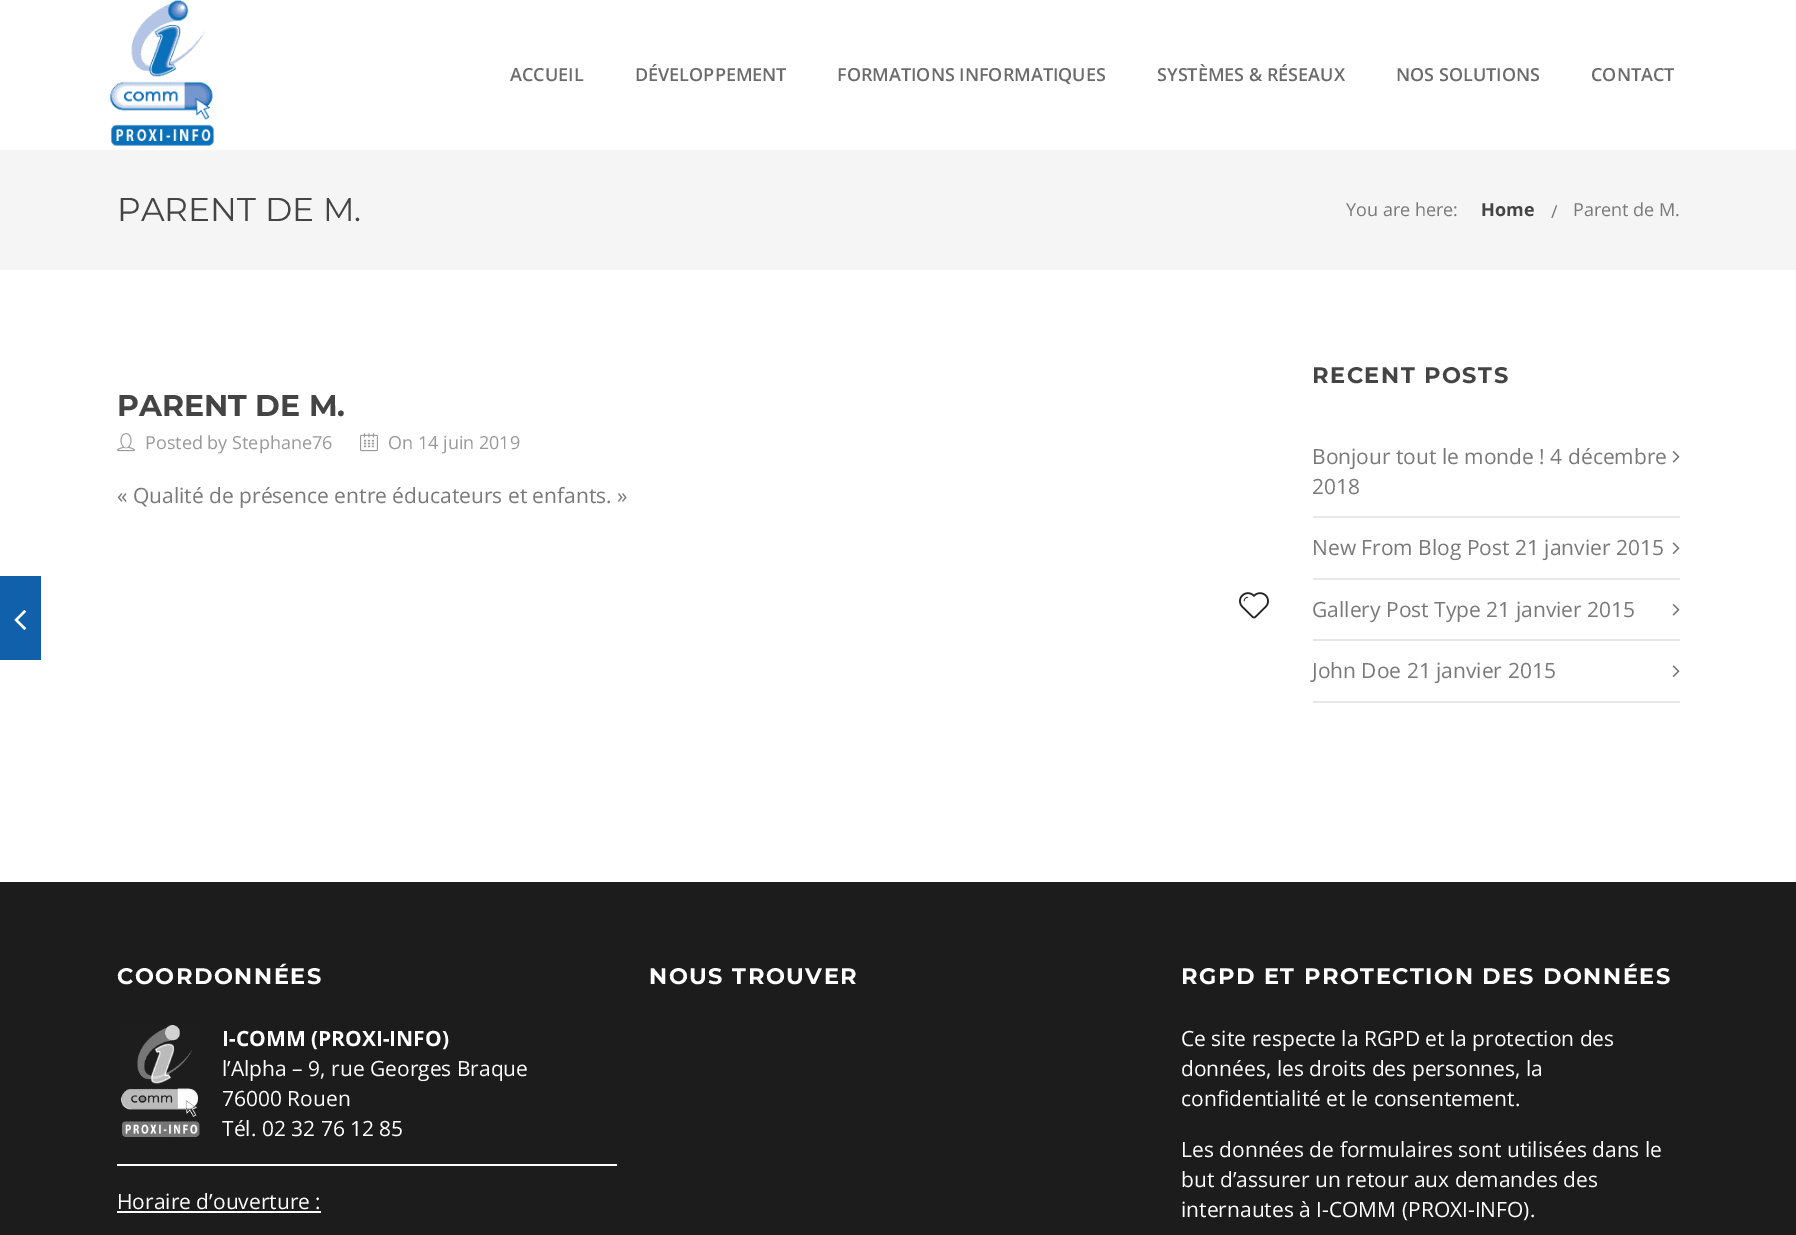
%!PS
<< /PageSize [1796 1235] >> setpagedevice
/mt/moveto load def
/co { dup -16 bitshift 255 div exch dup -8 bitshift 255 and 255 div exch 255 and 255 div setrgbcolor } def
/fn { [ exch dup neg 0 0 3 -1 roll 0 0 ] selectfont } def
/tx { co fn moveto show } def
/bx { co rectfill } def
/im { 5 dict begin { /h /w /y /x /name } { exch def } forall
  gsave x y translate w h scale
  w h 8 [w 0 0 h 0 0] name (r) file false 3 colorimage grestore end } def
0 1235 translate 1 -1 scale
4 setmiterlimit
0 0 1796 1235 16#FFFFFF bx
(media/1.raw) 110 0 104 146 im
0 150 1796 120 16#F5F5F5 bx
0 576 41 84 16#1160AB bx
(media/2.raw) 14 610 13 20 im
(media/3.raw) 117 433 18 19 im
(media/4.raw) 360 433 18 19 im
(media/5.raw) 1239 592 30 27 im
1313 516 367 2 16#E7E7E7 bx
(media/6.raw) 1672 451 8 12 im
1313 578 367 2 16#E7E7E7 bx
(media/7.raw) 1672 542 8 12 im
1313 639 367 2 16#E7E7E7 bx
(media/6.raw) 1672 604 8 12 im
1313 701 367 2 16#E7E7E7 bx
(media/7.raw) 1672 665 8 12 im
0 882 1796 353 16#1C1C1C bx
(media/8.raw) 121 1025 79 112 im
117 1164 500 2 16#FFFFFF bx
117 1211 204 2 16#FFFFFF bx
(ACCUEIL) 510 81 /OpenSans-SemiBold 18 16#6B6B6B tx
(DÉVELOPPEMENT) 635 81 /OpenSans-SemiBold 18 16#6B6B6B tx
(FORMATIONS INFORMATIQUES) 837 81 /OpenSans-SemiBold 18 16#6B6B6B tx
(SYSTÈMES & RÉSEAUX) 1157 81 /OpenSans-SemiBold 18 16#6B6B6B tx
(NOS SOLUTIONS) 1396 81 /OpenSans-SemiBold 18 16#6B6B6B tx
(CONTACT) 1591 81 /OpenSans-SemiBold 18 16#6B6B6B tx
(PARENT DE M.) 117 221 /Montserrat-Regular 33 16#444444 tx
(You are here:) 1346 216 /OpenSans-Regular 18 16#797979 tx
(Home) 1481 216 /OpenSans-Bold 18 16#444444 tx
(/) 1551 218 /OpenSans-Regular 18 16#797979 tx
(Parent de M.) 1573 216 /OpenSans-Regular 18 16#797979 tx
(PARENT DE M.) 117 416 /Montserrat-Bold 30 16#444444 tx
(Posted by Stephane76) 145 449 /OpenSans-Regular 18 16#999999 tx
(On 14 juin 2019) 388 449 /OpenSans-Regular 18 16#999999 tx
(« Qualité de présence entre éducateurs et enfants. ») 117 503 /OpenSans-Regular 21 16#797979 tx
/Montserrat-Bold 22.5 fn
16#444444 co
1312 383 mt 1.5 0 (RECENT POSTS) ashow
(Bonjour tout le monde ! 4 décembre) 1312 464 /OpenSans-Regular 21 16#797979 tx
(2018) 1312 494 /OpenSans-Regular 21 16#797979 tx
(New From Blog Post 21 janvier 2015) 1312 555 /OpenSans-Regular 21 16#797979 tx
(Gallery Post Type 21 janvier 2015) 1312 617 /OpenSans-Regular 21 16#797979 tx
(John Doe 21 janvier 2015) 1312 678 /OpenSans-Regular 21 16#797979 tx
/Montserrat-Bold 22.5 fn
16#FFFFFF co
117 984 mt 1.5 0 (COORDONNÉES) ashow
(I-COMM \(PROXI-INFO\)) 222 1046 /OpenSans-Bold 21 16#FFFFFF tx
(l’Alpha – 9, rue Georges Braque) 222 1076 /OpenSans-Regular 21 16#FFFFFF tx
(76000 Rouen) 222 1106 /OpenSans-Regular 21 16#FFFFFF tx
(Tél. 02 32 76 12 85) 222 1136 /OpenSans-Regular 21 16#FFFFFF tx
(Horaire d’ouverture :) 117 1209 /OpenSans-Regular 21 16#FFFFFF tx
/Montserrat-Bold 22.5 fn
649 984 mt 1.5 0 (NOUS TROUVER) ashow
1181 984 mt 1.5 0 (RGPD ET PROTECTION DES DONNÉES) ashow
(Ce site respecte la RGPD et la protection des) 1181 1046 /OpenSans-Regular 21 16#FFFFFF tx
(données, les droits des personnes, la) 1181 1076 /OpenSans-Regular 21 16#FFFFFF tx
(confidentialité et le consentement.) 1181 1106 /OpenSans-Regular 21 16#FFFFFF tx
(Les données de formulaires sont utilisées dans le) 1181 1157 /OpenSans-Regular 21 16#FFFFFF tx
(but d’assurer un retour aux demandes des) 1181 1187 /OpenSans-Regular 21 16#FFFFFF tx
(internautes à I-COMM \(PROXI-INFO\).) 1181 1217 /OpenSans-Regular 21 16#FFFFFF tx
showpage
